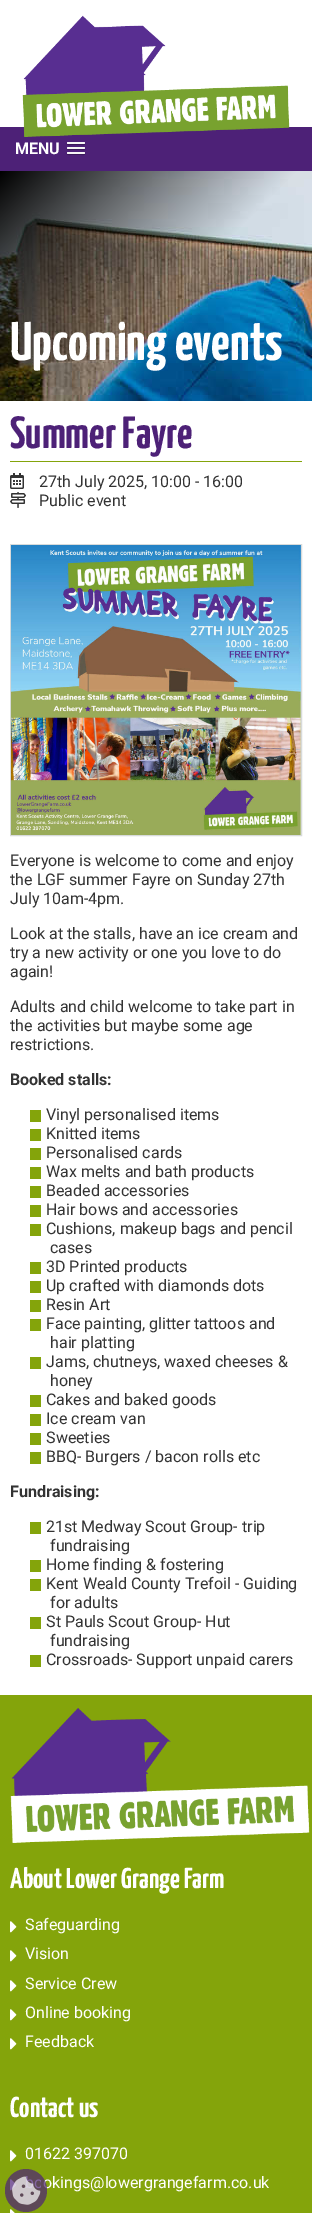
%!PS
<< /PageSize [312 2213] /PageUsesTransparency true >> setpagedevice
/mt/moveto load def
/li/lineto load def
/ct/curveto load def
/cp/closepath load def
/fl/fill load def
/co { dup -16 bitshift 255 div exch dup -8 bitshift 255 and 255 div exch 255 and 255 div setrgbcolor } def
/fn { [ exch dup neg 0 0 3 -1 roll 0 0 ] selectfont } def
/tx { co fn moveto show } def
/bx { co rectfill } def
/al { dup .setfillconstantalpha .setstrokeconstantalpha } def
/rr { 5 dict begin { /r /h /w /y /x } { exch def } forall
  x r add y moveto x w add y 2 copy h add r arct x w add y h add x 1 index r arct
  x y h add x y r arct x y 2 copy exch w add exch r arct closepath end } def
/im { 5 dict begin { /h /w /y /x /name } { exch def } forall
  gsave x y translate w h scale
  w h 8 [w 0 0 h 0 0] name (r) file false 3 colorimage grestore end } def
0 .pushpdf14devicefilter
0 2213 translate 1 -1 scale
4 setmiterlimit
0 0 312 2213 16#84A40B bx
0 0 312 127 16#FFFFFF bx
0 127 312 44 16#4D2177 bx
(media/1.raw) 22 15 268 122 im
16#3A1959 co
67 143.5 mt 66 145.5 70.5 145 70.5 145 ct 81.5 145 li 81.5 145 86 145.5 85 143.5 ct 84 144.5 77.5 144 76 144 ct 74.5 144 68 144.5 67 143.5 ct cp fl
16#F5F5F5 co
67 142 18 2 1 rr fl
16#3A1959 co
67 148.5 mt 66 150.5 70.5 150 70.5 150 ct 81.5 150 li 81.5 150 86 150.5 85 148.5 ct 84 149.5 77.5 149 76 149 ct 74.5 149 68 149.5 67 148.5 ct cp fl
16#F5F5F5 co
67 147 18 2 1 rr fl
16#3A1959 co
67 153.5 mt 66 155.5 70.5 155 70.5 155 ct 81.5 155 li 81.5 155 86 155.5 85 153.5 ct 84 154.5 77.5 154 76 154 ct 74.5 154 68 154.5 67 153.5 ct cp fl
16#F5F5F5 co
67 152 18 2 1 rr fl
0 401 312 1294 16#FFFFFF bx
(media/2.raw) 0 171 312 230 im
10 461 292 1 16#84A40B bx
(media/3.raw) 10 473 14 16 im
(media/4.raw) 10 492 16 16 im
16#D7DADA co
10.5 544.5 291 291 rectstroke
(media/5.raw) 11 545 290 290 im
30 1110 11 12 16#84A40B bx
30 1129 11 12 16#84A40B bx
30 1148 11 12 16#84A40B bx
30 1167 11 12 16#84A40B bx
30 1186 11 12 16#84A40B bx
30 1205 11 12 16#84A40B bx
30 1224 11 12 16#84A40B bx
30 1262 11 12 16#84A40B bx
30 1281 11 12 16#84A40B bx
30 1300 11 12 16#84A40B bx
30 1319 11 12 16#84A40B bx
30 1357 11 12 16#84A40B bx
30 1395 11 12 16#84A40B bx
30 1414 11 12 16#84A40B bx
30 1433 11 12 16#84A40B bx
30 1452 11 12 16#84A40B bx
30 1522 11 12 16#84A40B bx
30 1560 11 12 16#84A40B bx
30 1579 11 12 16#84A40B bx
30 1617 11 12 16#84A40B bx
30 1655 11 12 16#84A40B bx
(media/6.raw) 10 1708 300 135 im
(media/7.raw) 10 1921 7 12 im
(media/7.raw) 10 1950 7 12 im
(media/7.raw) 10 1980 7 12 im
(media/7.raw) 10 2009 7 12 im
(media/7.raw) 10 2038 7 12 im
(media/7.raw) 10 2150 7 12 im
(media/7.raw) 10 2179 7 12 im
(media/8.raw) 10 2209 5 4 im
(MENU) 15 154 /Roboto-Bold 16 16#FFFFFF tx
(Upcoming events) 10 360 /YanoneKaffeesatz-ExtraLight 54.5 16#FFFFFF tx
(Summer Fayre) 10 448 /YanoneKaffeesatz-ExtraLight 45 16#4D2177 tx
(27th July 2025, 10:00 - 16:00) 39 487 /Roboto-Regular 16 16#333333 tx
(Public event) 39 506 /Roboto-Regular 16 16#333333 tx
(Everyone is welcome to come and enjoy) 10 866 /Roboto-Regular 16 16#333333 tx
(the LGF summer Fayre on Sunday 27th) 10 885 /Roboto-Regular 16 16#333333 tx
(July 10am-4pm.) 10 904 /Roboto-Regular 16 16#333333 tx
(Look at the stalls, have an ice cream and) 10 939 /Roboto-Regular 16 16#333333 tx
(try a new activity or one you love to do) 10 958 /Roboto-Regular 16 16#333333 tx
(again!) 10 977 /Roboto-Regular 16 16#333333 tx
(Adults and child welcome to take part in) 10 1012 /Roboto-Regular 16 16#333333 tx
(the activities but maybe some age) 10 1031 /Roboto-Regular 16 16#333333 tx
(restrictions.) 10 1050 /Roboto-Regular 16 16#333333 tx
(Booked stalls:) 10 1085 /Roboto-Bold 16 16#333333 tx
(Vinyl personalised items) 46 1120 /Roboto-Regular 16 16#333333 tx
(Knitted items) 46 1139 /Roboto-Regular 16 16#333333 tx
(Personalised cards) 46 1158 /Roboto-Regular 16 16#333333 tx
(Wax melts and bath products) 46 1177 /Roboto-Regular 16 16#333333 tx
(Beaded accessories) 46 1196 /Roboto-Regular 16 16#333333 tx
(Hair bows and accessories) 46 1215 /Roboto-Regular 16 16#333333 tx
(Cushions, makeup bags and pencil) 46 1234 /Roboto-Regular 16 16#333333 tx
(cases) 50 1253 /Roboto-Regular 16 16#333333 tx
(3D Printed products) 46 1272 /Roboto-Regular 16 16#333333 tx
(Up crafted with diamonds dots) 46 1291 /Roboto-Regular 16 16#333333 tx
(Resin Art) 46 1310 /Roboto-Regular 16 16#333333 tx
(Face painting, glitter tattoos and) 46 1329 /Roboto-Regular 16 16#333333 tx
(hair platting) 50 1348 /Roboto-Regular 16 16#333333 tx
(Jams, chutneys, waxed cheeses &) 46 1367 /Roboto-Regular 16 16#333333 tx
(honey) 50 1386 /Roboto-Regular 16 16#333333 tx
(Cakes and baked goods) 46 1405 /Roboto-Regular 16 16#333333 tx
(Ice cream van) 46 1424 /Roboto-Regular 16 16#333333 tx
(Sweeties) 46 1443 /Roboto-Regular 16 16#333333 tx
(BBQ- Burgers / bacon rolls etc) 46 1462 /Roboto-Regular 16 16#333333 tx
(Fundraising:) 10 1497 /Roboto-Bold 16 16#333333 tx
(21st Medway Scout Group- trip) 46 1532 /Roboto-Regular 16 16#333333 tx
(fundraising) 50 1551 /Roboto-Regular 16 16#333333 tx
(Home finding & fostering) 46 1570 /Roboto-Regular 16 16#333333 tx
(Kent Weald County Trefoil - Guiding) 46 1589 /Roboto-Regular 16 16#333333 tx
(for adults) 50 1608 /Roboto-Regular 16 16#333333 tx
(St Pauls Scout Group- Hut) 46 1627 /Roboto-Regular 16 16#333333 tx
(fundraising) 50 1646 /Roboto-Regular 16 16#333333 tx
(Crossroads- Support unpaid carers) 46 1665 /Roboto-Regular 16 16#333333 tx
(About Lower Grange Farm) 10 1888 /YanoneKaffeesatz-ExtraLight 28.75 16#FFFFFF tx
(Safeguarding) 25 1930 /Roboto-Regular 16 16#FFFFFF tx
(Vision) 25 1959 /Roboto-Regular 16 16#FFFFFF tx
(Service Crew) 25 1989 /Roboto-Regular 16 16#FFFFFF tx
(Online booking) 25 2018 /Roboto-Regular 16 16#FFFFFF tx
(Feedback) 25 2047 /Roboto-Regular 16 16#FFFFFF tx
(Contact us) 10 2117 /YanoneKaffeesatz-ExtraLight 28.75 16#FFFFFF tx
(01622 397070) 25 2159 /Roboto-Regular 16 16#FFFFFF tx
(okings@lowergrangefarm.co.uk) 43 2188 /Roboto-Regular 16 16#FFFFFF tx
0.7 al
16#4D2177 co
5 2169 42 43 21 rr fl
1 al
(media/9.raw) 12 2176 29 29 im
.poppdf14devicefilter showpage
